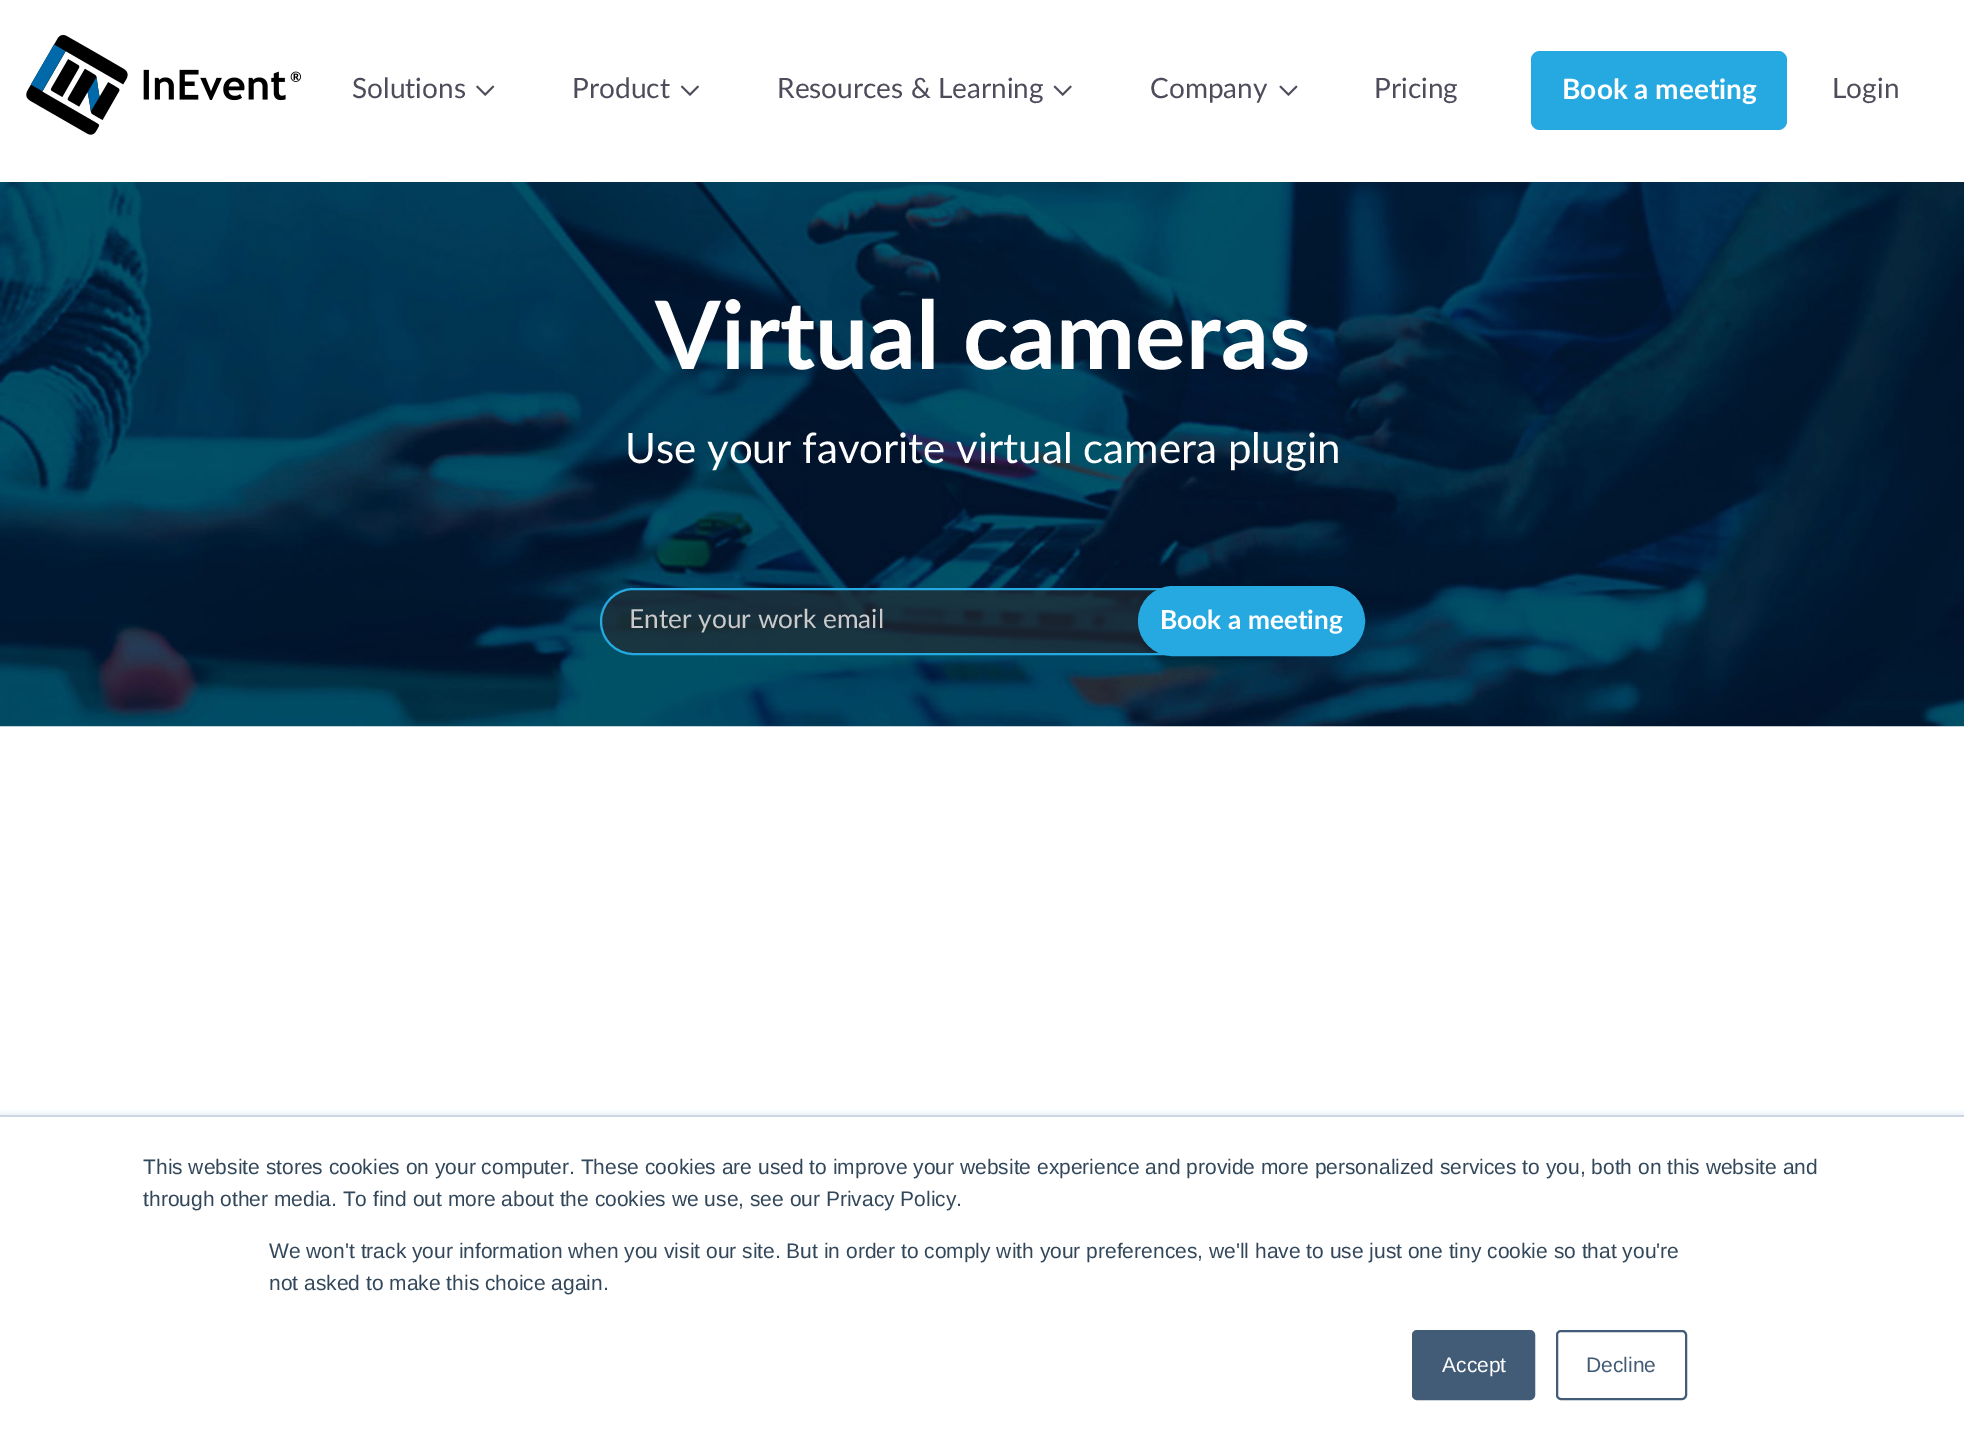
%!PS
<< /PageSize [1964 1445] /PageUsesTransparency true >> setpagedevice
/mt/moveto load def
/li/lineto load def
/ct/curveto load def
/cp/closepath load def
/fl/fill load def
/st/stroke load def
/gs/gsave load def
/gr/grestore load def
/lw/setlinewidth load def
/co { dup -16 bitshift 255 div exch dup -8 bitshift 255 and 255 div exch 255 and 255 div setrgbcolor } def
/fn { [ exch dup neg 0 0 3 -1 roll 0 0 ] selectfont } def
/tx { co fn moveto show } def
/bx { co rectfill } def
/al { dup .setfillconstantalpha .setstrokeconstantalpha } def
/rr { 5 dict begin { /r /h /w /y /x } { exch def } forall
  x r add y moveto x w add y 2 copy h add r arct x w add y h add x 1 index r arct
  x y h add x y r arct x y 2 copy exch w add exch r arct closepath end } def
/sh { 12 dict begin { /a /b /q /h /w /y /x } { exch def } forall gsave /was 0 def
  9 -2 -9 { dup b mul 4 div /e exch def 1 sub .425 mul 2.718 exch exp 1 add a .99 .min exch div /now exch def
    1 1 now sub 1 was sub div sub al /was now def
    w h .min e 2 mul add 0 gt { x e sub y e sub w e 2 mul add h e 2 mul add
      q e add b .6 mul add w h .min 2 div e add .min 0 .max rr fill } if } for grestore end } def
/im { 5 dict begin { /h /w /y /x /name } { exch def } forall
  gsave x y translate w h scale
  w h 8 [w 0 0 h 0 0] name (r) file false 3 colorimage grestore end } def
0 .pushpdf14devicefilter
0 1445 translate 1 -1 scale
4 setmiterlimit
0 0 1964 1445 16#FFFFFF bx
(media/1.raw) 26 35 275 100 im
(media/2.raw) 476 85 19 11 im
(media/3.raw) 680 85 19 11 im
(media/4.raw) 1053 85 19 11 im
(media/5.raw) 1279 85 19 11 im
16#25A9E0 co
1531 51 256 79 9 rr fl
(media/6.raw) 0 182 1964 545 im
0.7 al
16#222930 co
633.5 589 mt 1168 589 li 1168 654 li 633.5 654 li 615.5 654 601 639.5 601 621.5 ct 601 603.5 615.5 589 633.5 589 ct cp fl
1 al
16#25A9E0 co
2 lw
633.5 589 mt 1168 589 li 1168 654 li 633.5 654 li 615.5 654 601 639.5 601 621.5 ct 601 603.5 615.5 589 633.5 589 ct cp st
1139 587 225 68 34 rr gs fl gr
st
gs
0 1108 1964 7 rectclip
16#EAF0F6 co
0 1113 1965 331 0 2.5 1 sh
gr
0 1115 1964 2 16#CBD6E2 bx
16#425B76 co
1413 1331 121 68 4 rr gs fl gr
st
1557 1331 129 68 4 rr st
(Solutions) 352 98 /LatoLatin-Regular 28 16#4E4C5B tx
(Product) 572 98 /LatoLatin-Regular 28 16#4E4C5B tx
(Resources & Learning) 777 98 /LatoLatin-Regular 28 16#4E4C5B tx
(Company) 1150 98 /LatoLatin-Regular 28 16#4E4C5B tx
(Pricing) 1374 98 /LatoLatin-Regular 28 16#4E4C5B tx
(Book a meeting) 1562 99 /LatoLatin-Bold 28 16#FEFEFE tx
(Login) 1832 98 /LatoLatin-Regular 28 16#4E4C5B tx
(Virtual cameras) 655 369 /LatoLatin-Bold 94.5 16#FEFEFE tx
(Use your favorite virtual camera plugin) 625 463 /LatoLatin-Regular 42 16#FEFEFE tx
(Enter your work email) 629 628 /LatoLatin-Regular 26.25 16#CACACA tx
(Book a meeting) 1160 629 /LatoLatin-Bold 26.25 16#FEFEFE tx
(This website stores cookies on your computer. These cookies are used to improve your website experience and provide more personalized services to you, both on this website and) 143 1174 /LiberationSans-Regular 21 16#33475B tx
(through other media. To find out more about the cookies we use, see our Privacy Policy.) 143 1206 /LiberationSans-Regular 21 16#33475B tx
(We won't track your information when you visit our site. But in order to comply with your preferences, we'll have to use just one tiny cookie so that you're) 269 1258 /LiberationSans-Regular 21 16#33475B tx
(not asked to make this choice again.) 269 1290 /LiberationSans-Regular 21 16#33475B tx
(Accept) 1442 1372 /LiberationSans-Regular 21 16#FEFEFE tx
(Decline) 1586 1372 /LiberationSans-Regular 21 16#425B76 tx
.poppdf14devicefilter showpage
